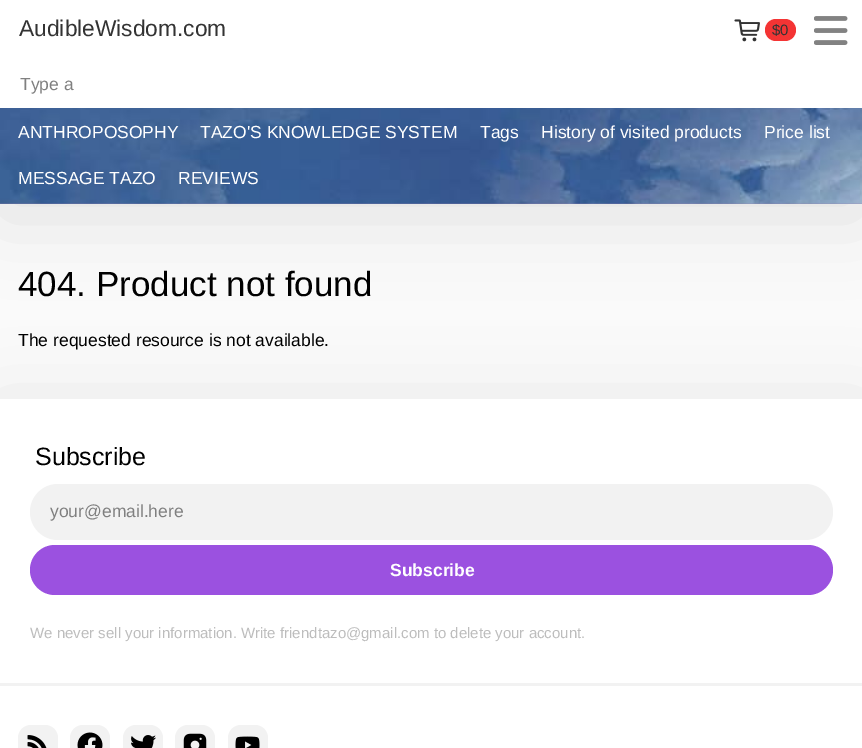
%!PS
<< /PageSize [862 748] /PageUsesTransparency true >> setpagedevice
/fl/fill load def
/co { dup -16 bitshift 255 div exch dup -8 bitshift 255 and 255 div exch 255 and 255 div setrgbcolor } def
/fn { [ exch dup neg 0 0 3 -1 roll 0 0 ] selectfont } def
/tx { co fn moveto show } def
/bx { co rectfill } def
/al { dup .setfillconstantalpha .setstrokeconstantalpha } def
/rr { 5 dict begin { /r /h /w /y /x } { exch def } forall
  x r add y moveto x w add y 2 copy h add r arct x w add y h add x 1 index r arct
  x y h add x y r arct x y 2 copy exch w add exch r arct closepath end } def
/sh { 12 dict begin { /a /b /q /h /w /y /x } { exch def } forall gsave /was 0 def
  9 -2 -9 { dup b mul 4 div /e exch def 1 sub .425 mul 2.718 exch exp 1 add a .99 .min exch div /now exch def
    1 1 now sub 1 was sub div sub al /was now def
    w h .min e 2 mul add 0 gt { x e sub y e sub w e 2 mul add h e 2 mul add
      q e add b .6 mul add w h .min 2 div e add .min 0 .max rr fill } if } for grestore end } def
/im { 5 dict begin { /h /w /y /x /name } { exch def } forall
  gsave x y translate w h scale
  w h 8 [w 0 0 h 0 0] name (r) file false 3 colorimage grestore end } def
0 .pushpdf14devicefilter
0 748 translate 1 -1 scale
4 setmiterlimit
0 0 862 748 16#FAFAFA bx
16#000000 co
0 13 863 203 0 37.5 .1 sh
(media/1.raw) 0 108 862 96 im
0 0 862 108 16#FFFFFF bx
(media/2.raw) 734 19 26 23 im
16#F43434 co
765 19 31 22 11 rr fl
(media/3.raw) 814 16 34 29 im
16#000000 co
0 411 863 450 0 37.5 .1 sh
0 399 862 349 16#FFFFFF bx
0 683 862 3 16#F2F2F2 bx
30 484 803 56 28 rr fl
16#9B51E0 co
30 545 803 50 25 rr fl
16#F2F2F2 co
18 725 40 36 13 rr fl
(media/4.raw) 27 735 20 13 im
70 725 40 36 13 rr fl
(media/5.raw) 77 732 26 16 im
123 725 40 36 13 rr fl
(media/6.raw) 131 735 25 13 im
175 725 40 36 13 rr fl
(media/7.raw) 183 733 24 15 im
228 725 40 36 13 rr fl
(media/8.raw) 235 736 25 12 im
(AudibleWisdom.com) 19 36 /LiberationSans-Regular 22.75 16#333333 tx
($0) 772 35 /LiberationSans-Regular 15 16#333333 tx
(Type a) 20 90 /LiberationSans-Regular 17.5 16#808080 tx
(ANTHROPOSOPHY) 18 138 /LiberationSans-Regular 17.5 16#FFFFFF tx
(TAZO'S KNOWLEDGE SYSTEM) 200 138 /LiberationSans-Regular 17.5 16#FFFFFF tx
(Tags) 480 138 /LiberationSans-Regular 17.5 16#FFFFFF tx
(History of visited products) 541 138 /LiberationSans-Regular 17.5 16#FFFFFF tx
(Price list) 764 138 /LiberationSans-Regular 17.5 16#FFFFFF tx
(MESSAGE TAZO) 18 184 /LiberationSans-Regular 17.5 16#FFFFFF tx
(REVIEWS) 178 184 /LiberationSans-Regular 17.5 16#FFFFFF tx
(404. Product not found) 18 296 /LiberationSans-Regular 35 16#000000 tx
(The requested resource is not available.) 18 346 /LiberationSans-Regular 17.5 16#000000 tx
(Subscribe) 35 465 /LiberationSans-Regular 25 16#000000 tx
(your@email.here) 50 517 /LiberationSans-Regular 17.5 16#808080 tx
(Subscribe) 390 576 /LiberationSans-Bold 17.5 16#FFFFFF tx
(We never sell your information. Write friendtazo@gmail.com to delete your account.) 30 638 /LiberationSans-Regular 15 16#BDBDBD tx
.poppdf14devicefilter showpage
